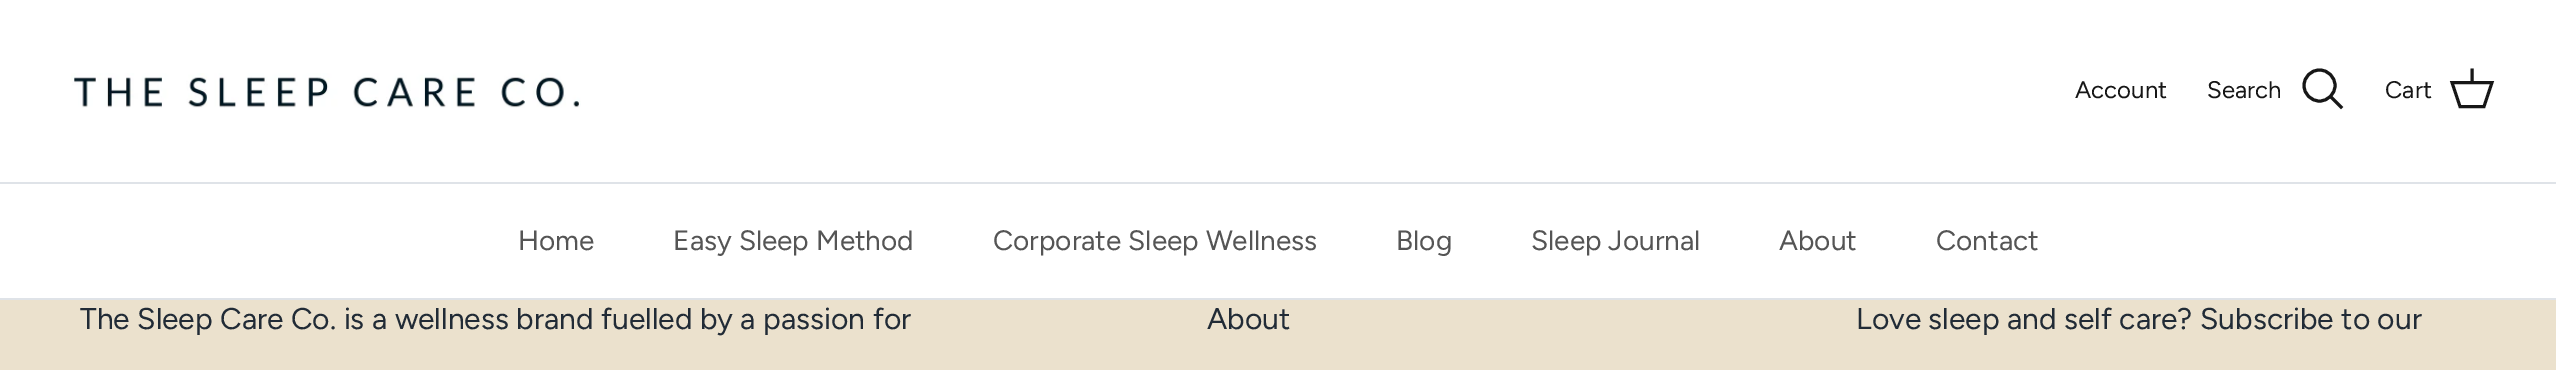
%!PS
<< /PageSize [2556 370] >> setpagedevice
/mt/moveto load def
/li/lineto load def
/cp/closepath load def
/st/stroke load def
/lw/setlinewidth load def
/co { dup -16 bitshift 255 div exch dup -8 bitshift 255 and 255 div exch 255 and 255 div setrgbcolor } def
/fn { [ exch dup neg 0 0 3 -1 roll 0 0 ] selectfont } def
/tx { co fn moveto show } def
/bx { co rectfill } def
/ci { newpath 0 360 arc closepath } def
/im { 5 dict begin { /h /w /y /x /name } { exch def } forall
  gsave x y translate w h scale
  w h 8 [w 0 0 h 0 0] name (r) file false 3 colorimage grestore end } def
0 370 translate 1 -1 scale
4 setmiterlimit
0 0 2556 370 16#EBE1CD bx
0 0 2556 182 16#FFFFFF bx
0 182 2556 2 16#DFE3E8 bx
(media/1.raw) 71 73 510 35 im
16#171717 co
3 lw
2319.5 85.5 15.5 ci st
2 setlinecap
2332 98 mt 2341 107 li st
0 setlinecap
2452 82.5 mt 2492 82.5 li 2484 106.5 li 2460 106.5 li cp st
2 setlinecap
2472 82 mt 2472 70 li st
0 298 2556 2 16#DFE3E8 bx
0 184 2556 114 16#FFFFFF bx
(Account) 2075 98 /Figtree-Regular 24 16#171717 tx
(Search) 2207 98 /Figtree-Regular 24 16#171717 tx
(Cart) 2385 98 /Figtree-Regular 24 16#171717 tx
(Home) 518 250 /Figtree-Regular 28 16#555555 tx
(Easy Sleep Method) 673 250 /Figtree-Regular 28 16#555555 tx
(Corporate Sleep Wellness) 993 250 /Figtree-Regular 28 16#555555 tx
(Blog) 1396 250 /Figtree-Regular 28 16#555555 tx
(Sleep Journal) 1531 250 /Figtree-Regular 28 16#555555 tx
(About) 1779 250 /Figtree-Regular 28 16#555555 tx
(Contact) 1936 250 /Figtree-Regular 28 16#555555 tx
(The Sleep Care Co. is a wellness brand fuelled by a passion for) 80 329 /Figtree-Regular 30 16#212B36 tx
(About) 1207 329 /Figtree-Regular 30 16#212B36 tx
(Love sleep and self care? Subscribe to our) 1856 329 /Figtree-Regular 30 16#212B36 tx
showpage
